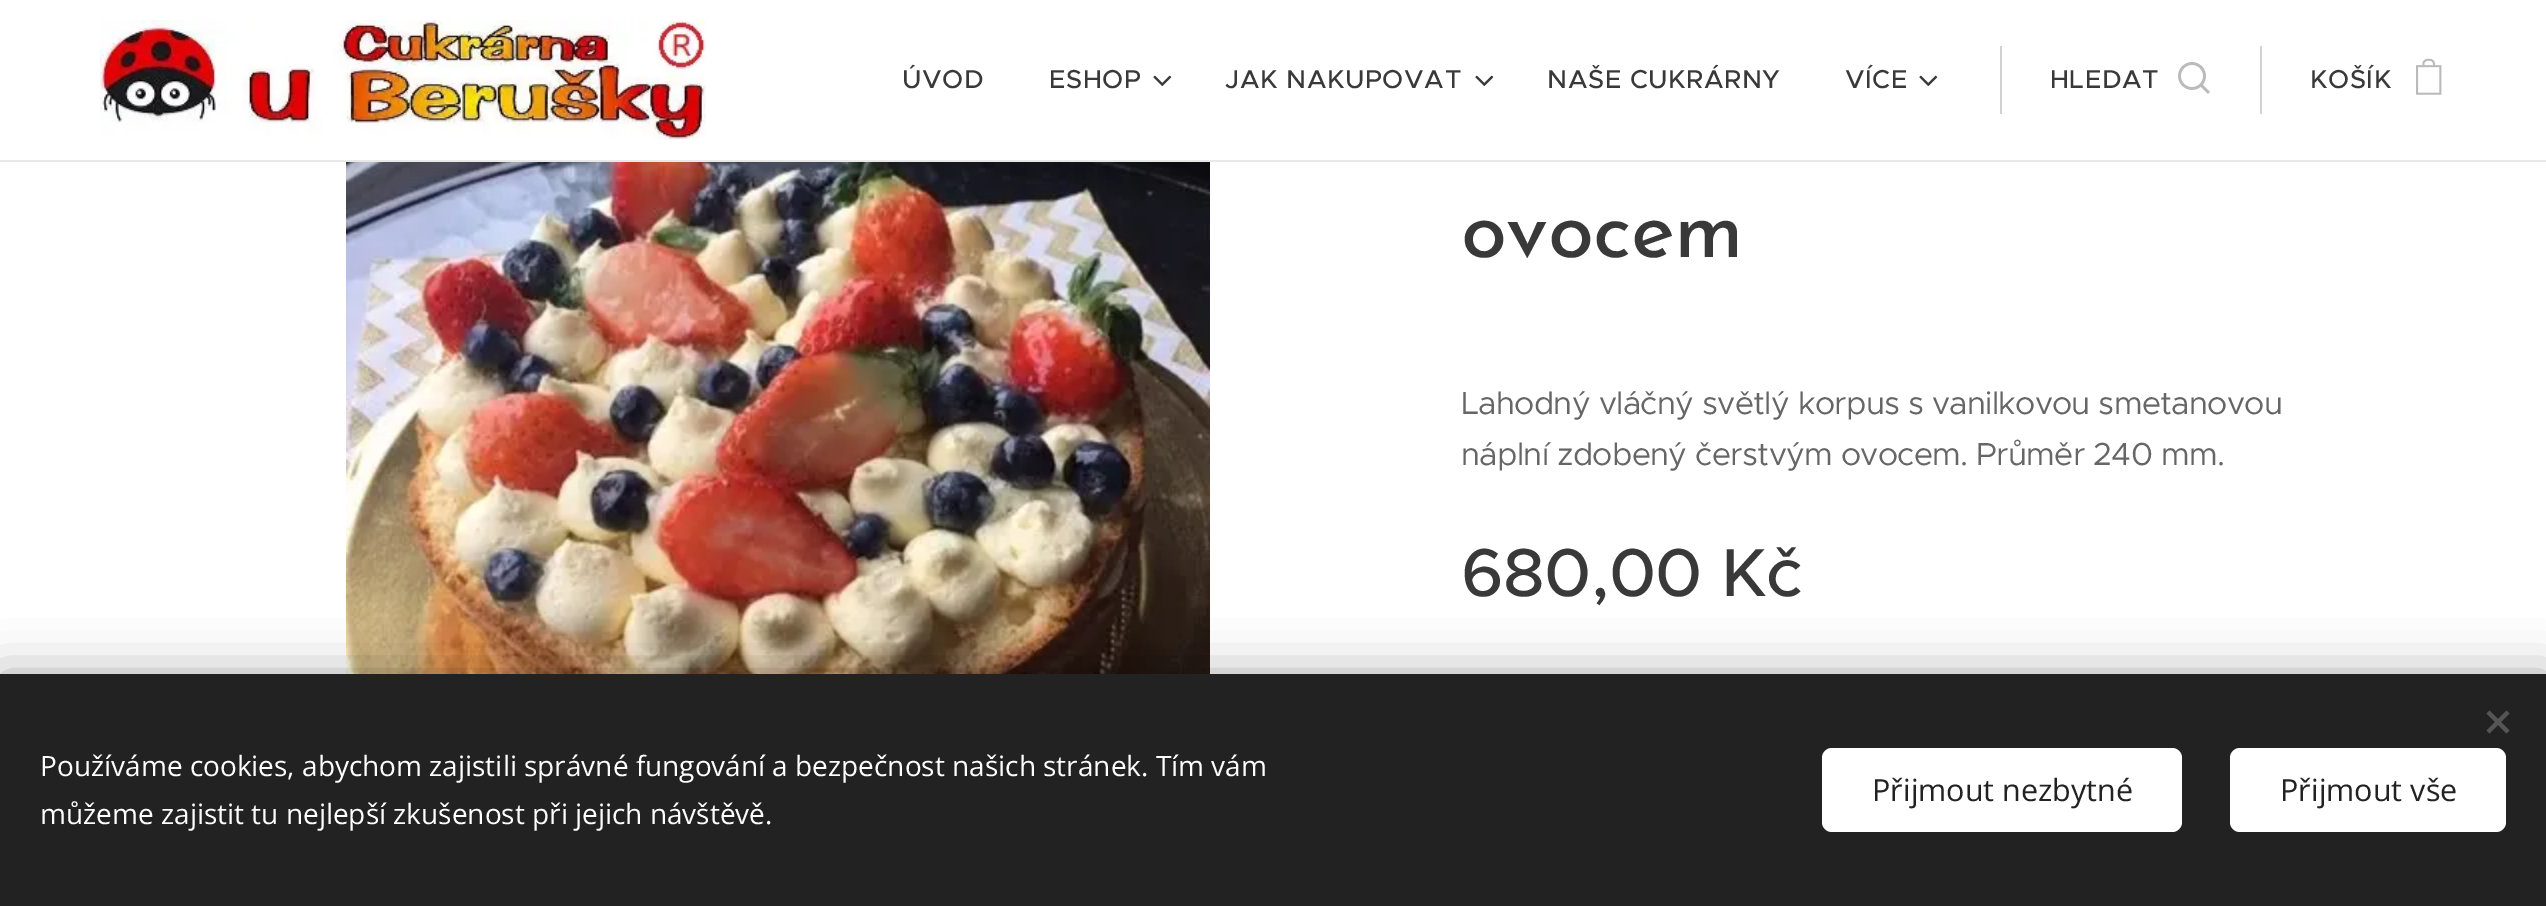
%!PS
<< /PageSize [2546 906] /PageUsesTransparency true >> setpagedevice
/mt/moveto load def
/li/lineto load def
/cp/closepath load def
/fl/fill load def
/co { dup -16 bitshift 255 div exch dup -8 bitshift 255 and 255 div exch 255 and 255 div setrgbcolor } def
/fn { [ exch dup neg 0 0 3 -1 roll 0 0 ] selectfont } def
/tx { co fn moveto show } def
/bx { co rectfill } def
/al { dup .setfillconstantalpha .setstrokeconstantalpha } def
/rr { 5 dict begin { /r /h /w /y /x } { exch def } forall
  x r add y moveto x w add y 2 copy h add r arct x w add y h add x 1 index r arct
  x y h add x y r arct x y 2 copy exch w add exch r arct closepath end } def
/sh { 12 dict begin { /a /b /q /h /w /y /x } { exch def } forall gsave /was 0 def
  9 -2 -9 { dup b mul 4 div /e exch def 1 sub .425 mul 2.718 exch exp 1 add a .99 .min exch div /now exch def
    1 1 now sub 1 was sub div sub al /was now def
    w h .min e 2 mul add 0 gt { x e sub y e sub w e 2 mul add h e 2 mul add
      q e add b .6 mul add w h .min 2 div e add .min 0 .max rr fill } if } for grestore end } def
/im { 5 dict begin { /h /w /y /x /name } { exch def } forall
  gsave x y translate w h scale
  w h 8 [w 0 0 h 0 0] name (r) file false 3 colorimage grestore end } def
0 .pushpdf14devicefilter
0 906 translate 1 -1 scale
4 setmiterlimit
0 0 2546 906 16#FFFFFF bx
0 160 2546 2 16#E8E8E8 bx
(media/1.raw) 100 20 606 120 im
(media/2.raw) 1153 75 19 11 im
(media/2.raw) 1475 75 19 11 im
(media/2.raw) 1919 75 19 11 im
2000 46 2 68 16#D1D1D1 bx
(media/3.raw) 2178 62 32 32 im
2260 46 2 68 16#D1D1D1 bx
(media/4.raw) 2416 58 26 37 im
(media/5.raw) 346 162 864 512 im
16#000000 co
0 674 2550 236 0 25 .33 sh
0 674 2546 232 16#222222 bx
16#555555 co
2486.5 730.5 mt 2506.5 710.5 li 2509.5 713.5 li 2489.5 733.5 li cp fl
2489.5 710.5 mt 2509.5 730.5 li 2506.5 733.5 li 2486.5 713.5 li cp fl
16#FFFFFF co
1822 748 360 84 10 rr fl
2230 748 276 84 10 rr fl
/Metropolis-Medium 26 fn
16#393939 co
902 88 mt .6 0 (ÚVOD) ashow
1049 88 mt .6 0 (ESHOP) ashow
1225 88 mt .6 0 (JAK NAKUPOVAT) ashow
1547 88 mt .6 0 (NAŠE CUKRÁRNY) ashow
1845 88 mt .6 0 (VÍCE) ashow
2050 88 mt .6 0 (HLEDAT) ashow
2310 88 mt .6 0 (KOŠÍK) ashow
/JosefinSans-Regular 84 fn
1461 257 mt -.65 0 (ovocem) ashow
/Metropolis-Regular 32 fn
16#666666 co
1461 414 mt -.65 0 (Lahodný vláčný světlý korpus s vanilkovou smetanovou) ashow
1461 465 mt -.65 0 (náplní zdobený čerstvým ovocem. Průměr 240 mm.) ashow
/Metropolis-Medium 68 fn
16#393939 co
1461 596 mt -.65 0 (680,00 Kč) ashow
(Používáme cookies, abychom zajistili správné fungování a bezpečnost našich stránek. Tím vám) 40 776 /OpenSans-Regular 28 16#FFFFFF tx
(můžeme zajistit tu nejlepší zkušenost při jejich návštěvě.) 40 824 /OpenSans-Regular 28 16#FFFFFF tx
(Přijmout nezbytné) 1872 801 /OpenSans-Regular 30.5 16#222222 tx
(Přijmout vše) 2280 801 /OpenSans-Regular 30.5 16#222222 tx
.poppdf14devicefilter showpage
